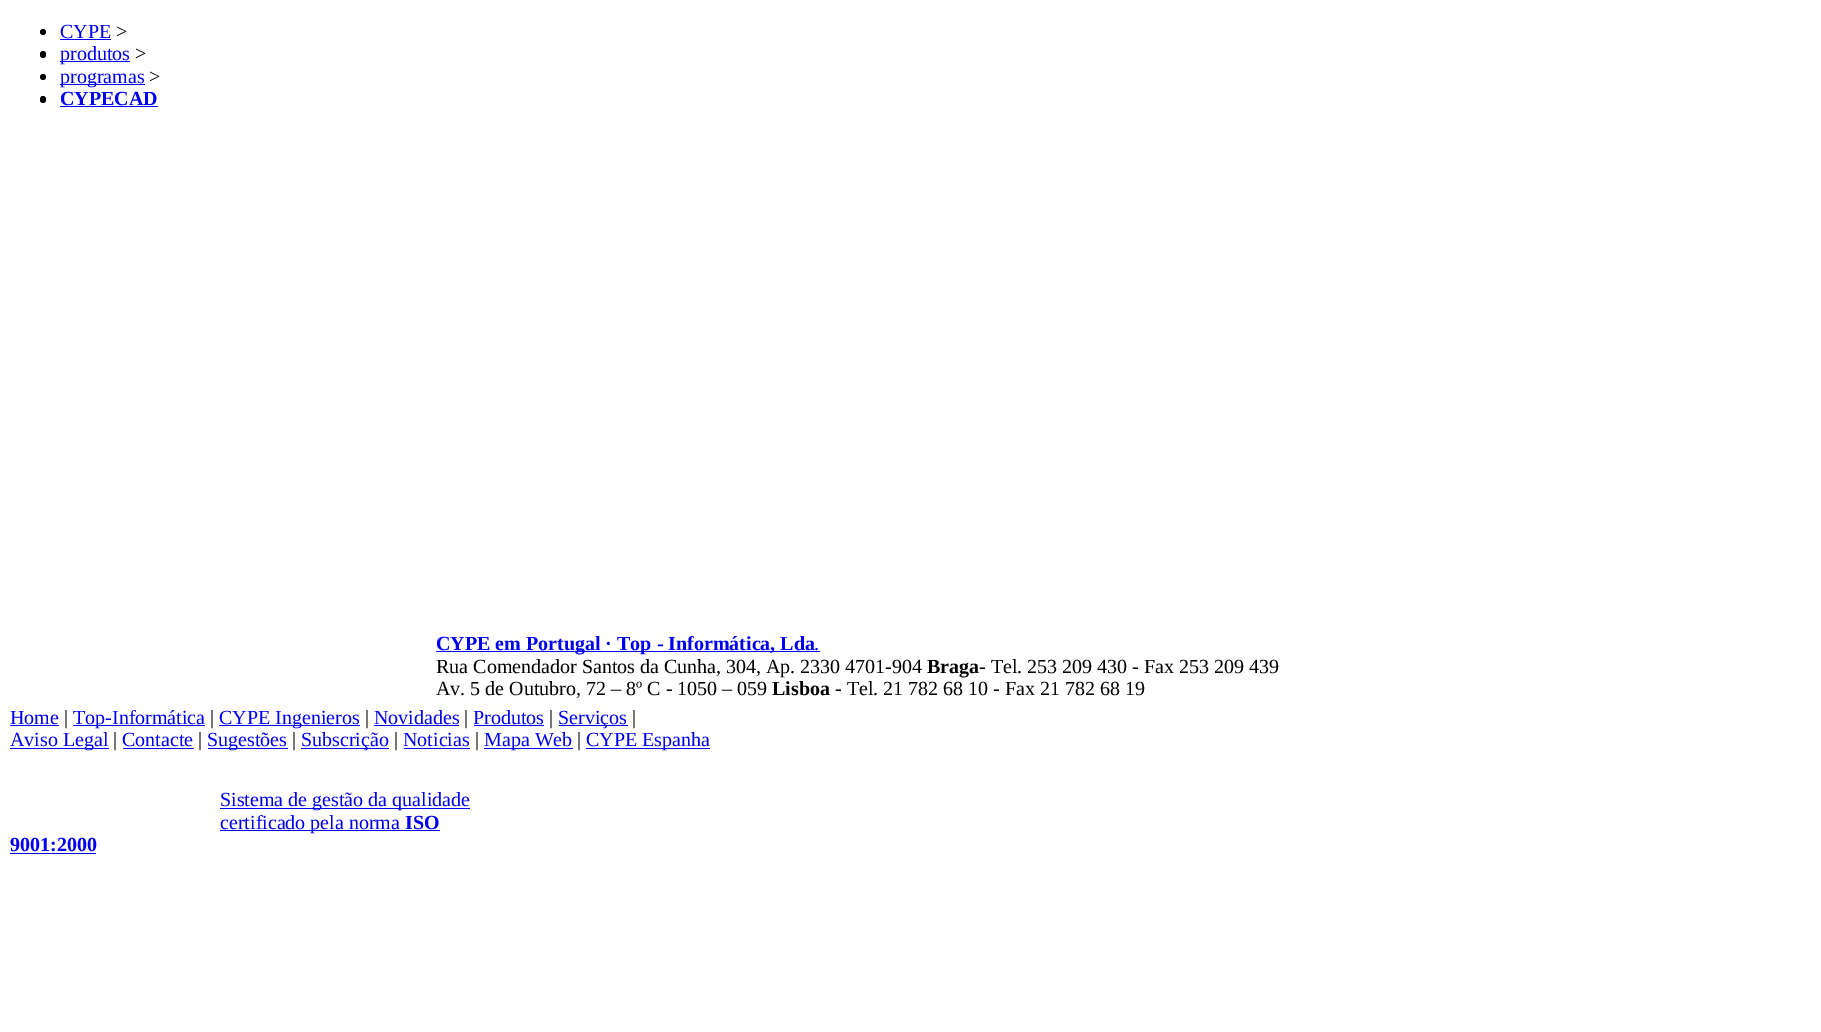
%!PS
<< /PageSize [1821 1032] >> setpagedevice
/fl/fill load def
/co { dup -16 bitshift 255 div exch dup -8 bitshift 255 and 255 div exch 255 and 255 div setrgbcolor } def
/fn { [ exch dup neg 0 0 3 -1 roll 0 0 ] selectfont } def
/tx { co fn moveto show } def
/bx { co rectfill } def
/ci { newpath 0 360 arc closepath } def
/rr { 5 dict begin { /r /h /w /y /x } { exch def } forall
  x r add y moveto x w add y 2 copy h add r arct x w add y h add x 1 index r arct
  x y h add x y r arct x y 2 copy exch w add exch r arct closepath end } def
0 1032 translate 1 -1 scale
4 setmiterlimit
0 0 1821 1032 16#FFFFFF bx
16#000000 co
43 32 3 ci fl
60 39 51 1 16#0000EE bx
16#000000 co
40 51 6 7 3 rr fl
60 61 70 1 16#0000EE bx
16#000000 co
43 77 3 ci fl
60 84 85 1 16#0000EE bx
16#000000 co
40 96 6 7 3 rr fl
60 106 98 1 16#0000EE bx
436 651 384 1 16#0000EE bx
10 725 49 1 16#0000EE bx
73 725 132 1 16#0000EE bx
219 725 141 1 16#0000EE bx
374 725 85 1 16#0000EE bx
474 725 70 1 16#0000EE bx
559 725 69 1 16#0000EE bx
10 748 99 1 16#0000EE bx
123 748 71 1 16#0000EE bx
208 748 80 1 16#0000EE bx
301 748 88 1 16#0000EE bx
404 748 66 1 16#0000EE bx
484 748 89 1 16#0000EE bx
586 748 124 1 16#0000EE bx
220 808 250 1 16#0000EE bx
220 830 220 1 16#0000EE bx
10 853 86 1 16#0000EE bx
(CYPE) 60 38 /LiberationSerif-Regular 20 16#0000EE tx
(>) 116 38 /LiberationSerif-Regular 20 16#000000 tx
(produtos) 60 60 /LiberationSerif-Regular 20 16#0000EE tx
(>) 135 60 /LiberationSerif-Regular 20 16#000000 tx
(programas) 60 83 /LiberationSerif-Regular 20 16#0000EE tx
(>) 149 83 /LiberationSerif-Regular 20 16#000000 tx
(CYPECAD) 60 105 /LiberationSerif-Bold 20 16#0000EE tx
(CYPE em Portugal · Top - Informática, Lda) 436 650 /LiberationSerif-Bold 20 16#0000EE tx
(.) 814 650 /LiberationSerif-Regular 20 16#0000EE tx
(Rua Comendador Santos da Cunha, 304, Ap. 2330 4701-904) 436 673 /LiberationSerif-Regular 20 16#000000 tx
(Braga) 927 673 /LiberationSerif-Bold 20 16#000000 tx
(- Tel. 253 209 430 - Fax 253 209 439) 979 673 /LiberationSerif-Regular 20 16#000000 tx
(Av. 5 de Outubro, 72 – 8º C - 1050 – 059) 436 695 /LiberationSerif-Regular 20 16#000000 tx
(Lisboa) 772 695 /LiberationSerif-Bold 20 16#000000 tx
(- Tel. 21 782 68 10 - Fax 21 782 68 19) 835 695 /LiberationSerif-Regular 20 16#000000 tx
(Home) 10 724 /LiberationSerif-Regular 20 16#0000EE tx
(|) 64 724 /LiberationSerif-Regular 20 16#000000 tx
(Top-Informática) 73 724 /LiberationSerif-Regular 20 16#0000EE tx
(|) 210 724 /LiberationSerif-Regular 20 16#000000 tx
(CYPE Ingenieros) 219 724 /LiberationSerif-Regular 20 16#0000EE tx
(|) 365 724 /LiberationSerif-Regular 20 16#000000 tx
(Novidades) 374 724 /LiberationSerif-Regular 20 16#0000EE tx
(|) 464 724 /LiberationSerif-Regular 20 16#000000 tx
(Produtos) 473 724 /LiberationSerif-Regular 20 16#0000EE tx
(|) 549 724 /LiberationSerif-Regular 20 16#000000 tx
(Serviços) 558 724 /LiberationSerif-Regular 20 16#0000EE tx
(|) 632 724 /LiberationSerif-Regular 20 16#000000 tx
(Aviso Legal) 10 746 /LiberationSerif-Regular 20 16#0000EE tx
(|) 113 746 /LiberationSerif-Regular 20 16#000000 tx
(Contacte) 122 746 /LiberationSerif-Regular 20 16#0000EE tx
(|) 198 746 /LiberationSerif-Regular 20 16#000000 tx
(Sugestões) 207 746 /LiberationSerif-Regular 20 16#0000EE tx
(|) 292 746 /LiberationSerif-Regular 20 16#000000 tx
(Subscrição) 301 746 /LiberationSerif-Regular 20 16#0000EE tx
(|) 394 746 /LiberationSerif-Regular 20 16#000000 tx
(Noticias) 403 746 /LiberationSerif-Regular 20 16#0000EE tx
(|) 475 746 /LiberationSerif-Regular 20 16#000000 tx
(Mapa Web) 484 746 /LiberationSerif-Regular 20 16#0000EE tx
(|) 577 746 /LiberationSerif-Regular 20 16#000000 tx
(CYPE Espanha) 586 746 /LiberationSerif-Regular 20 16#0000EE tx
(Sistema de gestão da qualidade) 220 806 /LiberationSerif-Regular 20 16#0000EE tx
(certificado pela norma) 220 829 /LiberationSerif-Regular 20 16#0000EE tx
(ISO) 405 829 /LiberationSerif-Bold 20 16#0000EE tx
(9001:2000) 10 851 /LiberationSerif-Bold 20 16#0000EE tx
showpage
